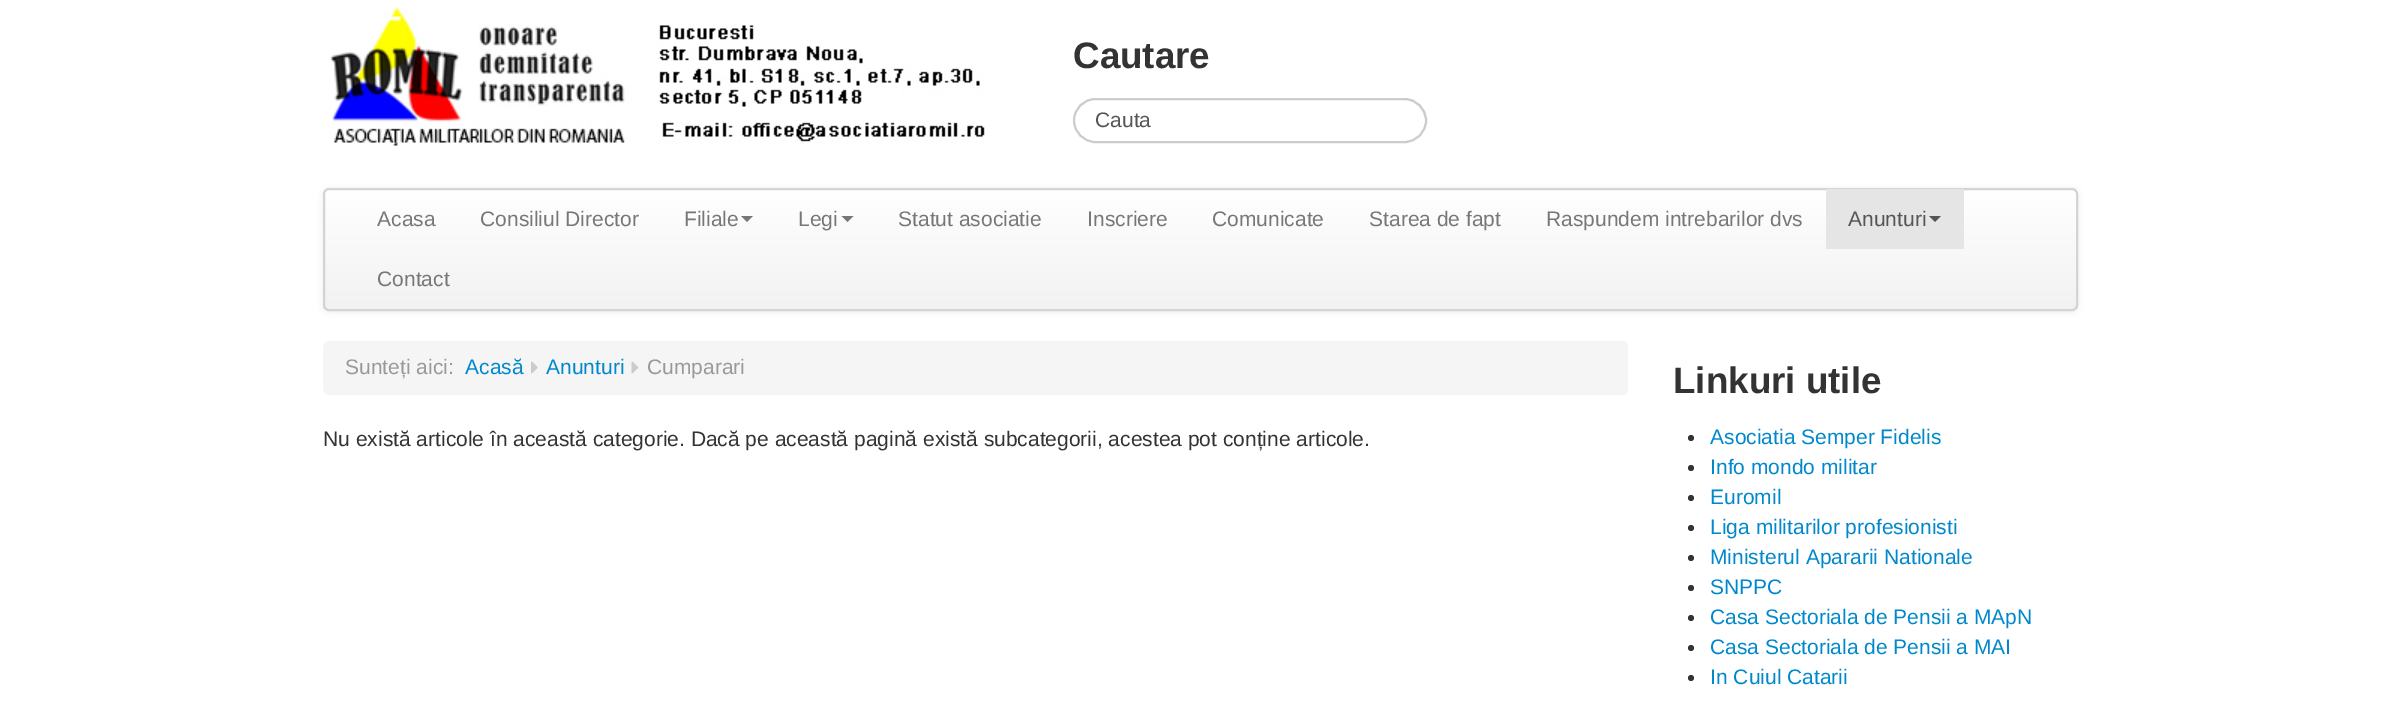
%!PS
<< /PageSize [2400 710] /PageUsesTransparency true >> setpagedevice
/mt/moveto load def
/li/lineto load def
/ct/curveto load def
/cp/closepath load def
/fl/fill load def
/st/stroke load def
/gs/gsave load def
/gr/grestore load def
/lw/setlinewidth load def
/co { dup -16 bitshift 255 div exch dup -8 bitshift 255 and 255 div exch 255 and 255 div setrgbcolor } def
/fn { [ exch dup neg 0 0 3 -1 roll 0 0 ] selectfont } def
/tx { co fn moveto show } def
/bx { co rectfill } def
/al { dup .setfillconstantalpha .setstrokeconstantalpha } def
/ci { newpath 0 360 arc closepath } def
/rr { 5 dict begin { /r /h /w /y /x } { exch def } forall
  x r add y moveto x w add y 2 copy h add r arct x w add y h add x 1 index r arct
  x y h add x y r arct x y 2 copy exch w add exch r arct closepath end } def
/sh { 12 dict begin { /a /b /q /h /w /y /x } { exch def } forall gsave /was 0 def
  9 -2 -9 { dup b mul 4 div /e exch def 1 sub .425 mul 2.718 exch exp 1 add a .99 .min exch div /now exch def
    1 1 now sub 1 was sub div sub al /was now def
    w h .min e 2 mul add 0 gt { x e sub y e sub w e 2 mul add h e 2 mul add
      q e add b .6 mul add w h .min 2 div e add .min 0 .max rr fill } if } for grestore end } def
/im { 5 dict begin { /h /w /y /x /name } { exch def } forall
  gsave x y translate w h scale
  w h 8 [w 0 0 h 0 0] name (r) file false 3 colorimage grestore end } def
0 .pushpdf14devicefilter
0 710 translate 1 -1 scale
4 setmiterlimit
0 0 2400 710 16#FFFFFF bx
(media/1.raw) 327 7 658 139 im
16#ECECEC co
1095 100 mt 1404 100 li 1416 100 1424 109 1425 121 ct 1426 109 1416 99 1404 99 ct 1095 99 li 1083 99 1073 109 1074 121 ct 1075 109 1083 100 1095 100 ct cp fl
16#CCCCCC co
2 lw
1074 99 352 43 21.5 rr st
16#000000 co
323 189 1755 123 6 3 .07 sh
gs
323 188 1755 123 6 rr clip newpath
gs 323 189 mt 2078 189 li 2078 309 li 323 309 li cp clip newpath
<< /ShadingType 2 /ColorSpace /DeviceRGB /Coords [1200 189 1200 309] /Extend [true true] /Function << /FunctionType 2 /Domain [0 1] /C0 [1 1 1] /C1 [.949 .949 .949] /N 1 >> >> shfill gr
gr
16#D4D4D4 co
324 189 1753 121 5 rr st
16#777777 co
741 216 mt 753 216 li 747 222 li cp fl
841.5 216 mt 853.5 216 li 847.5 222 li cp fl
1826 189 138 60 16#E5E5E5 bx
16#555555 co
1929 216 mt 1941 216 li 1935 222 li cp fl
16#F5F5F5 co
323 341 1305 54 6 rr fl
(media/2.raw) 531 361 7 13 im
(media/3.raw) 631 361 8 13 im
16#333333 co
1691 438 3 ci fl
1691 468 3 ci fl
1691 498 3 ci fl
1691 528 3 ci fl
1691 558 3 ci fl
1691 588 3 ci fl
1691 618 3 ci fl
1691 648 3 ci fl
1691 678 3 ci fl
(Cautare) 1073 68 /LiberationSans-Bold 36.75 16#333333 tx
(Cauta) 1095 127 /LiberationSans-Regular 21 16#555555 tx
(Acasa) 377 226 /LiberationSans-Regular 21 16#777777 tx
(Consiliul Director) 480 226 /LiberationSans-Regular 21 16#777777 tx
(Filiale) 684 226 /LiberationSans-Regular 21 16#777777 tx
(Legi) 798 226 /LiberationSans-Regular 21 16#777777 tx
(Statut asociatie) 898 226 /LiberationSans-Regular 21 16#777777 tx
(Inscriere) 1087 226 /LiberationSans-Regular 21 16#777777 tx
(Comunicate) 1212 226 /LiberationSans-Regular 21 16#777777 tx
(Starea de fapt) 1369 226 /LiberationSans-Regular 21 16#777777 tx
(Raspundem intrebarilor dvs) 1546 226 /LiberationSans-Regular 21 16#777777 tx
(Anunturi) 1848 226 /LiberationSans-Regular 21 16#555555 tx
(Contact) 377 286 /LiberationSans-Regular 21 16#777777 tx
(Sunteți aici:) 345 374 /LiberationSans-Regular 21 16#999999 tx
(Acasă) 465 374 /LiberationSans-Regular 21 16#0088CC tx
(Anunturi) 546 374 /LiberationSans-Regular 21 16#0088CC tx
(Cumparari) 647 374 /LiberationSans-Regular 21 16#999999 tx
(Nu există articole în această categorie. Dacă pe această pagină există subcategorii, acestea pot conține articole.) 323 446 /LiberationSans-Regular 21 16#333333 tx
(Linkuri utile) 1673 393 /LiberationSans-Bold 36.75 16#333333 tx
(Asociatia Semper Fidelis) 1710 444 /LiberationSans-Regular 21 16#0088CC tx
(Info mondo militar) 1710 474 /LiberationSans-Regular 21 16#0088CC tx
(Euromil) 1710 504 /LiberationSans-Regular 21 16#0088CC tx
(Liga militarilor profesionisti) 1710 534 /LiberationSans-Regular 21 16#0088CC tx
(Ministerul Apararii Nationale) 1710 564 /LiberationSans-Regular 21 16#0088CC tx
(SNPPC) 1710 594 /LiberationSans-Regular 21 16#0088CC tx
(Casa Sectoriala de Pensii a MApN) 1710 624 /LiberationSans-Regular 21 16#0088CC tx
(Casa Sectoriala de Pensii a MAI) 1710 654 /LiberationSans-Regular 21 16#0088CC tx
(In Cuiul Catarii) 1710 684 /LiberationSans-Regular 21 16#0088CC tx
.poppdf14devicefilter showpage
